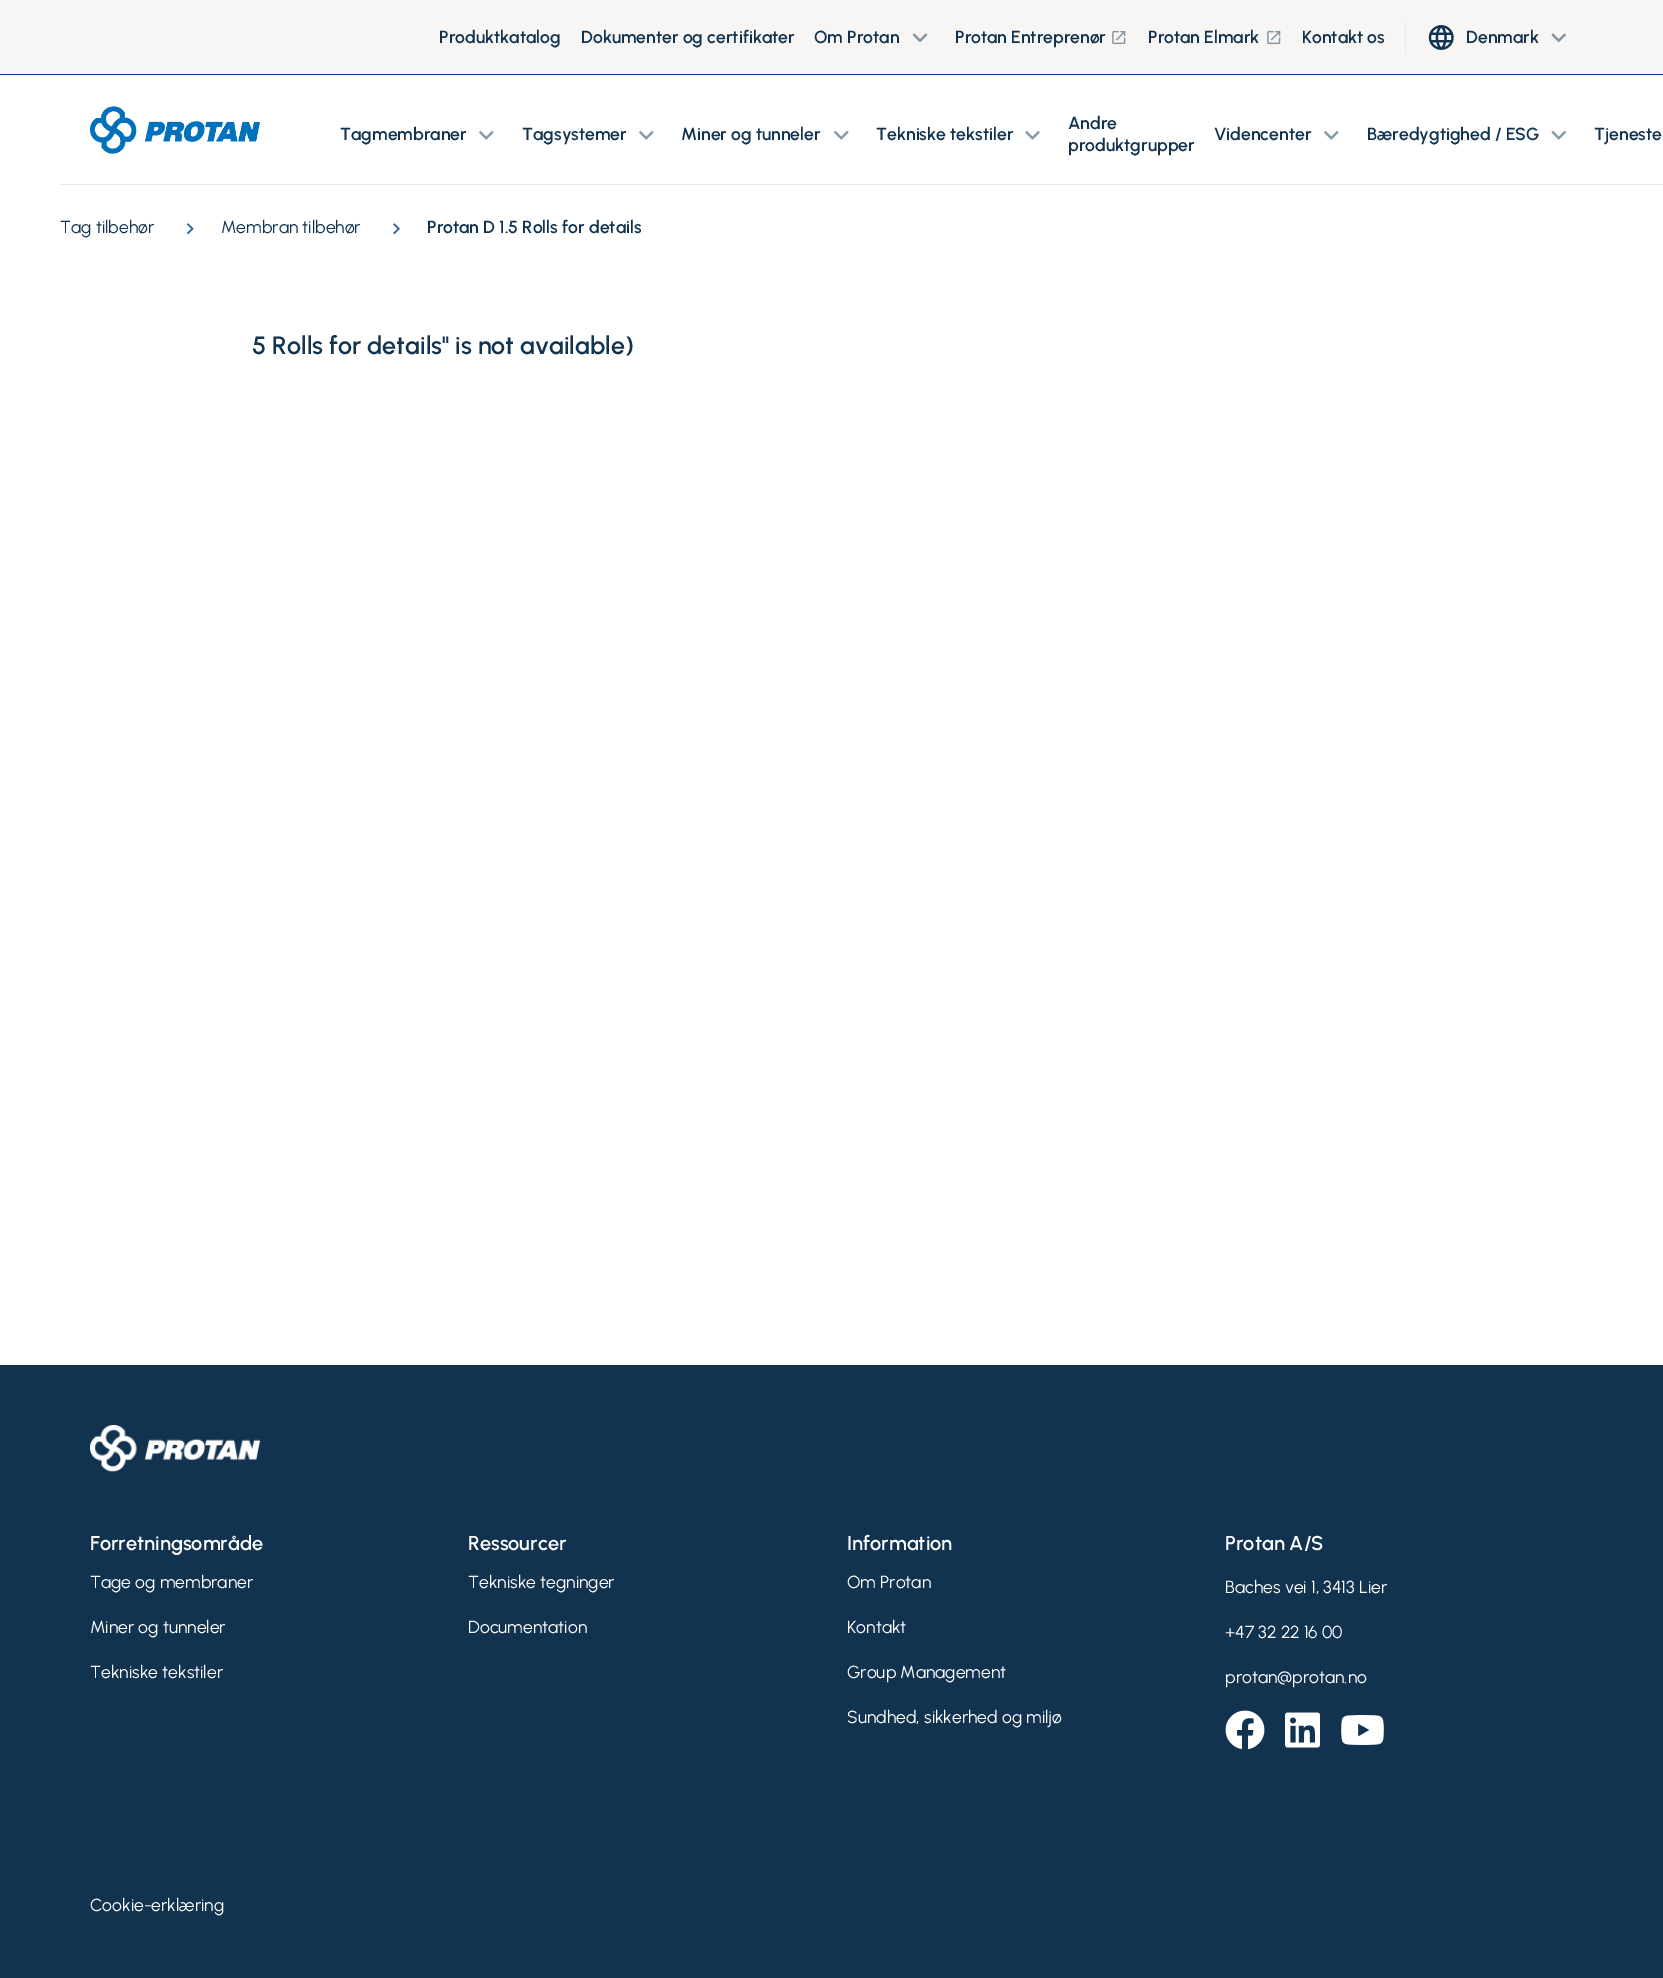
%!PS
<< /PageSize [1663 1978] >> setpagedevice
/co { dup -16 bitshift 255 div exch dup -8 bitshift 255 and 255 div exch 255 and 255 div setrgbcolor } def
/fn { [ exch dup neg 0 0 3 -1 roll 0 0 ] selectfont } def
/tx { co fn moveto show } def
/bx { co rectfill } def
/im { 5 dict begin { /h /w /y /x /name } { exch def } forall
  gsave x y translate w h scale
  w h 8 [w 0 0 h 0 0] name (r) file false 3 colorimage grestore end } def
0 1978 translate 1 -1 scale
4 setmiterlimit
0 0 1663 1978 16#FFFFFF bx
0 0 1663 74 16#F7F6F4 bx
0 74 1663 1 16#0A418C bx
(media/1.raw) 912 33 16 10 im
(media/2.raw) 1112 30 14 15 im
(media/2.raw) 1267 30 14 15 im
1405 23 1 30 16#E7EBED bx
(media/3.raw) 1428 25 26 25 im
(media/4.raw) 1551 33 16 10 im
(media/5.raw) 90 106 170 48 im
(media/6.raw) 478 130 16 10 im
(media/6.raw) 638 130 16 10 im
(media/6.raw) 833 130 16 10 im
(media/7.raw) 1025 130 15 10 im
(media/6.raw) 1323 130 16 10 im
(media/8.raw) 1551 130 16 10 im
60 184 1603 1 16#E7EBED bx
(media/9.raw) 186 223 8 12 im
(media/10.raw) 393 223 7 12 im
0 1365 1663 613 16#11334F bx
(media/11.raw) 90 1425 170 47 im
(media/12.raw) 1225 1710 40 40 im
(media/13.raw) 1285 1712 35 36 im
(media/14.raw) 1341 1715 43 30 im
(Produktkatalog) 439 43 /Urbanist-SemiBold 17.5 16#11334F tx
(Dokumenter og certifikater) 581 43 /Urbanist-SemiBold 17.5 16#11334F tx
(Om Protan) 814 43 /Urbanist-SemiBold 17.5 16#11334F tx
(Protan Entreprenør) 955 43 /Urbanist-SemiBold 17.5 16#11334F tx
(Protan Elmark) 1148 43 /Urbanist-SemiBold 17.5 16#11334F tx
(Kontakt os) 1302 43 /Urbanist-SemiBold 17.5 16#11334F tx
(Denmark) 1466 43 /Urbanist-SemiBold 17.5 16#11334F tx
(Tagmembraner) 340 140 /Urbanist-SemiBold 17.5 16#11334F tx
(Tagsystemer) 522 140 /Urbanist-SemiBold 17.5 16#11334F tx
(Miner og tunneler) 681 140 /Urbanist-SemiBold 17.5 16#11334F tx
(Tekniske tekstiler) 876 140 /Urbanist-SemiBold 17.5 16#11334F tx
(Andre) 1068 129 /Urbanist-SemiBold 17.5 16#11334F tx
(produktgrupper) 1068 151 /Urbanist-SemiBold 17.5 16#11334F tx
(Videncenter) 1214 140 /Urbanist-SemiBold 17.5 16#11334F tx
(Bæredygtighed / ESG) 1367 140 /Urbanist-SemiBold 17.5 16#11334F tx
(Tjeneste) 1594 140 /Urbanist-SemiBold 17.5 16#11334F tx
(Tag tilbehør) 60 233 /Urbanist-Regular 17.5 16#11334F tx
(Membran tilbehør) 221 233 /Urbanist-Regular 17.5 16#11334F tx
(Protan D 1.5 Rolls for details) 427 233 /Urbanist-SemiBold 17.5 16#11334F tx
(5 Rolls for details" is not available\)) 252 354 /Urbanist-SemiBold 25 16#11334F tx
(Forretningsområde) 90 1550 /Urbanist-SemiBold 20 16#FFFFFF tx
(Tage og membraner) 90 1588 /Urbanist-Regular 17.5 16#FFFFFF tx
(Miner og tunneler) 90 1633 /Urbanist-Regular 17.5 16#FFFFFF tx
(Tekniske tekstiler) 90 1678 /Urbanist-Regular 17.5 16#FFFFFF tx
(Ressourcer) 468 1550 /Urbanist-SemiBold 20 16#FFFFFF tx
(Tekniske tegninger) 468 1588 /Urbanist-Regular 17.5 16#FFFFFF tx
(Documentation) 468 1633 /Urbanist-Regular 17.5 16#FFFFFF tx
(Information) 847 1550 /Urbanist-SemiBold 20 16#FFFFFF tx
(Om Protan) 847 1588 /Urbanist-Regular 17.5 16#FFFFFF tx
(Kontakt) 847 1633 /Urbanist-Regular 17.5 16#FFFFFF tx
(Group Management) 847 1678 /Urbanist-Regular 17.5 16#FFFFFF tx
(Sundhed, sikkerhed og miljø) 847 1723 /Urbanist-Regular 17.5 16#FFFFFF tx
(Protan A/S) 1225 1550 /Urbanist-SemiBold 20 16#FFFFFF tx
(Baches vei 1, 3413 Lier) 1225 1593 /Urbanist-Regular 17.5 16#FFFFFF tx
(+47 32 22 16 00) 1225 1638 /Urbanist-Regular 17.5 16#FFFFFF tx
(protan@protan.no) 1225 1683 /Urbanist-Regular 17.5 16#FFFFFF tx
(Cookie-erklæring) 90 1911 /Urbanist-Regular 17.5 16#FFFFFF tx
showpage
